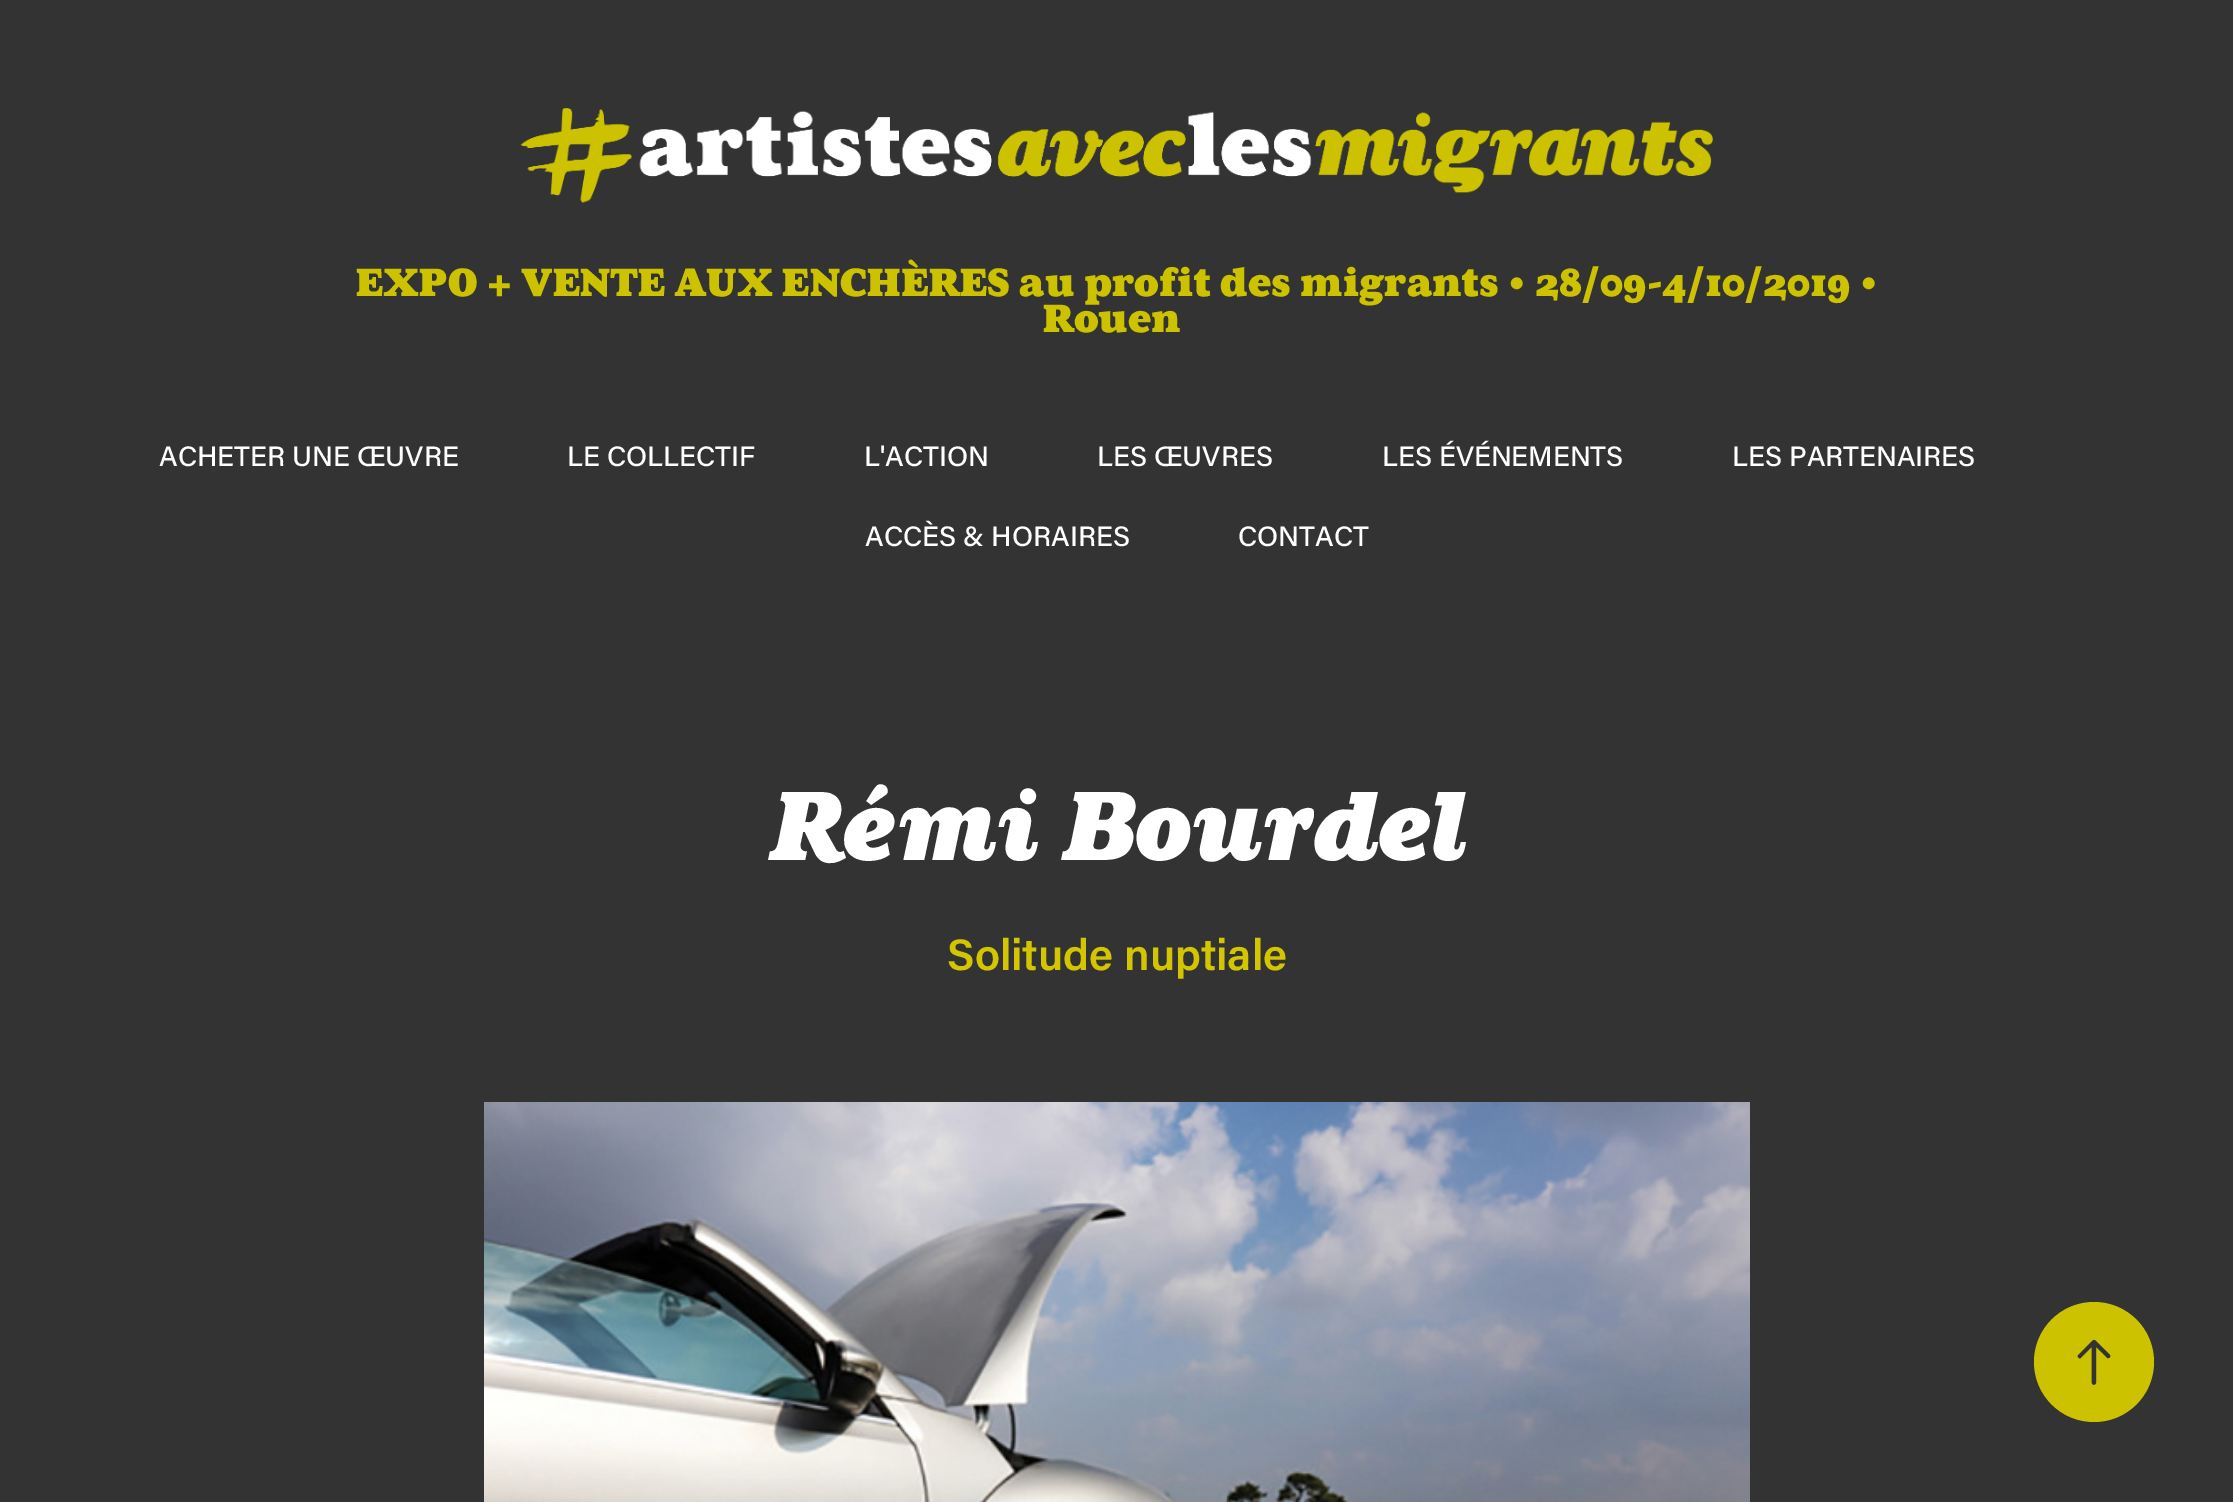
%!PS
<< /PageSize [2233 1502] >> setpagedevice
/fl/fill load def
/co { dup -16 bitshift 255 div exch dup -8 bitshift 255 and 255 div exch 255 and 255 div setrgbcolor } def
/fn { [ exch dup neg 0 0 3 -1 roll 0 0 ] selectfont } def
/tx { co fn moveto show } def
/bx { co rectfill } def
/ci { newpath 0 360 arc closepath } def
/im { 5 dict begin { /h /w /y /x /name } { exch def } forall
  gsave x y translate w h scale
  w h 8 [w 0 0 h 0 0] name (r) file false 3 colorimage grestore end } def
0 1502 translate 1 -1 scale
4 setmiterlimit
0 0 2233 1502 16#333333 bx
(media/1.raw) 520 108 1193 96 im
(media/2.raw) 484 1102 1266 400 im
16#CCC200 co
2094 1362 60 ci fl
(media/3.raw) 2077 1339 34 46 im
(EXPO + VENTE AUX ENCHÈRES au profit des migrants • 28/09-4/10/2019 •) 356 296 /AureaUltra-Regular 40 16#CCC200 tx
(Rouen) 1043 332 /AureaUltra-Regular 40 16#CCC200 tx
(ACHETER UNE ŒUVRE) 159 466 /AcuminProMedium-Medium 28 16#FFFFFF tx
(LE COLLECTIF) 567 466 /AcuminProMedium-Medium 28 16#FFFFFF tx
(L'ACTION) 864 466 /AcuminProMedium-Medium 28 16#FFFFFF tx
(LES ŒUVRES) 1097 466 /AcuminProMedium-Medium 28 16#FFFFFF tx
(LES ÉVÉNEMENTS) 1382 466 /AcuminProMedium-Medium 28 16#FFFFFF tx
(LES PARTENAIRES) 1732 466 /AcuminProMedium-Medium 28 16#FFFFFF tx
(ACCÈS & HORAIRES) 865 546 /AcuminProMedium-Medium 28 16#FFFFFF tx
(CONTACT) 1238 546 /AcuminProMedium-Medium 28 16#FFFFFF tx
(Rémi Bourdel) 768 860 /AureaUltra-MediumItalic 100 16#FFFFFF tx
(Solitude nuptiale) 947 970 /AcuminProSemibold-SemiBold 44 16#D3C600 tx
showpage
